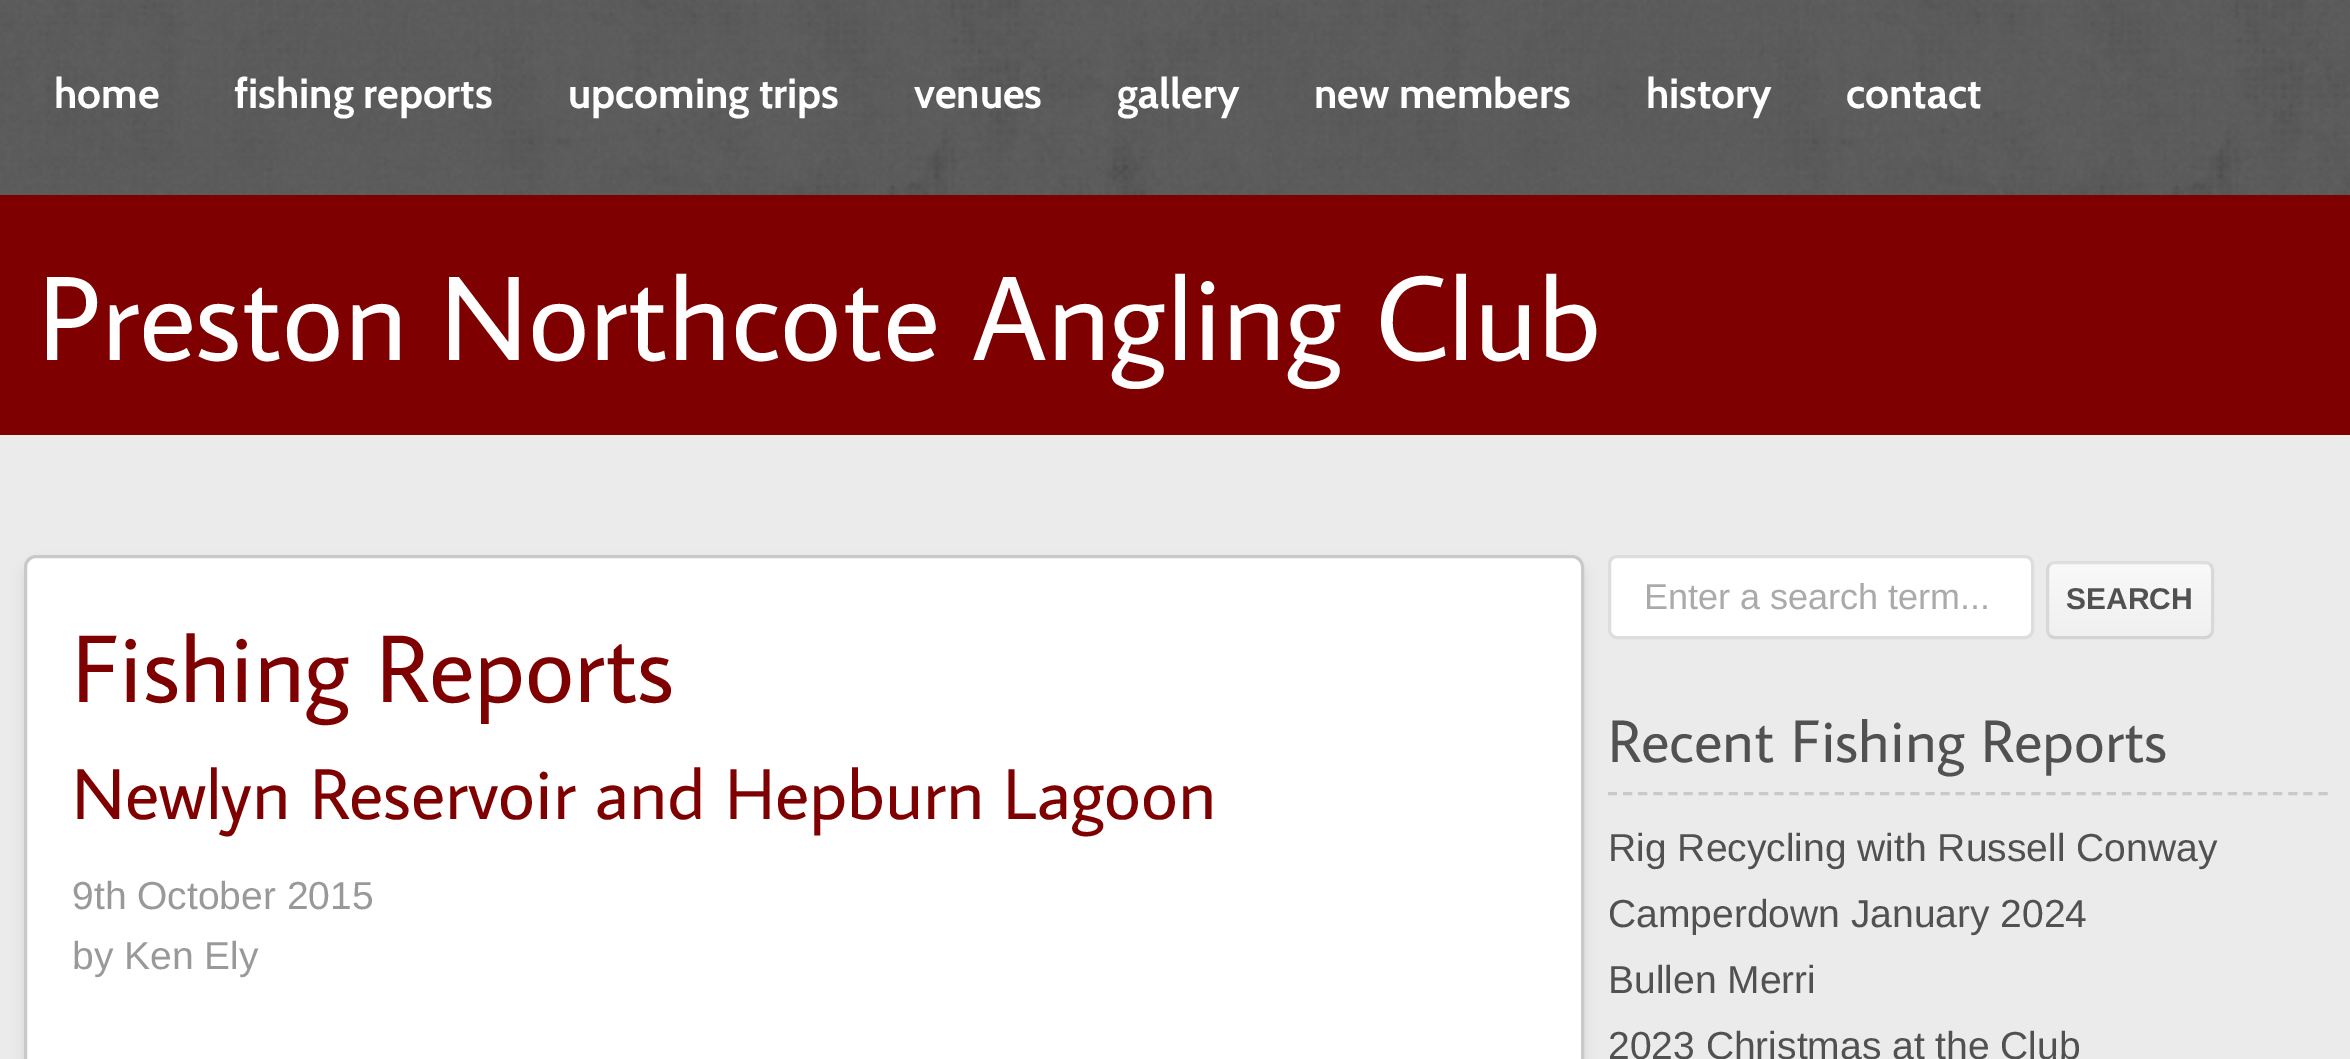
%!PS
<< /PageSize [2350 1059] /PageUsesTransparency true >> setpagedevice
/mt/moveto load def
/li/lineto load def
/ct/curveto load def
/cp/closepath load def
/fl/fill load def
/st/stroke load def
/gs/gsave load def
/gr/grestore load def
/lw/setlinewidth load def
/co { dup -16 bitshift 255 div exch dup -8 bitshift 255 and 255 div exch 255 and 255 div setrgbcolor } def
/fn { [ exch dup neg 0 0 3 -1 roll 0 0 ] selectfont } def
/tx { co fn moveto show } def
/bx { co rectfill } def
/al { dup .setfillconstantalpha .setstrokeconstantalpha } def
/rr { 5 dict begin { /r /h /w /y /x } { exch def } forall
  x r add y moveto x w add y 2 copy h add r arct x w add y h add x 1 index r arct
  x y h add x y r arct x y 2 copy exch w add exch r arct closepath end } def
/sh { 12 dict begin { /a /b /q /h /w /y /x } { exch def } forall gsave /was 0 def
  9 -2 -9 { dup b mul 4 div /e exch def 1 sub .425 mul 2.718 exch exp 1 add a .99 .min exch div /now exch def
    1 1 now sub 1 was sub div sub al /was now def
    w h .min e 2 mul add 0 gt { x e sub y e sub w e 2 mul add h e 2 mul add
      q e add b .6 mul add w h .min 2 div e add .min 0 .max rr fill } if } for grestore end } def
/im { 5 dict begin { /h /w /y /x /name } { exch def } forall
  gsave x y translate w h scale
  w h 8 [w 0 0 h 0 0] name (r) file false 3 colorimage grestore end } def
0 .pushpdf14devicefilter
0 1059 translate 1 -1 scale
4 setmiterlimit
0 0 2350 1059 16#FFFFFF bx
(media/1.raw) 0 0 2350 195 im
0 195 2350 240 16#7F0000 bx
0 435 2350 624 16#EBEBEB bx
16#000000 co
24 564 1560 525 12 6 .08 sh
16#FFFFFF co
25.5 556.5 1557 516 10.5 rr gs fl gr
16#C8C9C9 co
3 lw
st
16#FFFFFF co
1609.5 556.5 423 81 7.5 rr gs fl gr
16#DDDDDD co
st
gs
2046 561 168 78 9 rr clip newpath
gs 2046 564 mt 2214 564 li 2214 636 li 2046 636 li cp clip newpath
<< /ShadingType 2 /ColorSpace /DeviceRGB /Coords [2130 564 2130 636] /Extend [true true] /Function << /FunctionType 2 /Domain [0 1] /C0 [.976 .976 .976] /C1 [.941 .941 .941] /N 1 >> >> shfill gr
gr
16#DEDEDE co
2049.5 564.5 mt 2051 563.5 2053 562.5 2055 562.5 ct 2205 562.5 li 2207 562.5 2209 563.5 2210.5 564.5 ct st
16#D8D8D8 co
2210.5 564.5 mt 2211.5 566 2212.5 568 2212.5 570 ct 2212.5 630 li 2212.5 632 2211.5 634 2210.5 635.5 ct st
16#D3D3D3 co
2210.5 635.5 mt 2209 636.5 2207 637.5 2205 637.5 ct 2055 637.5 li 2053 637.5 2051 636.5 2049.5 635.5 ct st
16#D8D8D8 co
2049.5 635.5 mt 2048.5 634 2047.5 632 2047.5 630 ct 2047.5 570 li 2047.5 568 2048.5 566 2049.5 564.5 ct st
16#C9C9C9 co
[9 6.12] 0 setdash
1608 793.5 mt 2328 793.5 li st
(home) 54 108 /Cabin-Bold 42 16#FFFFFF tx
(fishing reports) 234 108 /Cabin-Bold 42 16#FFFFFF tx
(upcoming trips) 568 108 /Cabin-Bold 42 16#FFFFFF tx
(venues) 914 108 /Cabin-Bold 42 16#FFFFFF tx
(gallery) 1117 108 /Cabin-Bold 42 16#FFFFFF tx
(new members) 1314 108 /Cabin-Bold 42 16#FFFFFF tx
(history) 1646 108 /Cabin-Bold 42 16#FFFFFF tx
(contact) 1846 108 /Cabin-Bold 42 16#FFFFFF tx
(Preston Northcote Angling Club) 38 360 /AverageSans-Regular 120 16#FFFFFF tx
(Fishing Reports) 72 702 /AverageSans-Regular 96 16#7F0000 tx
(Newlyn Reservoir and Hepburn Lagoon) 72 819 /AverageSans-Regular 72 16#7F0000 tx
(9th October 2015) 72 909 /LiberationSans-Regular 39 16#999999 tx
(by Ken Ely) 72 969 /LiberationSans-Regular 39 16#999999 tx
(Enter a search term...) 1644 609 /LiberationSans-Regular 36 16#AAAAAA tx
(SEARCH) 2066 609 /LiberationSans-Bold 30 16#515151 tx
(Recent Fishing Reports) 1608 762 /AverageSans-Regular 60 16#515151 tx
(Rig Recycling with Russell Conway) 1608 861 /LiberationSans-Regular 39 16#515151 tx
(Camperdown January 2024) 1608 927 /LiberationSans-Regular 39 16#515151 tx
(Bullen Merri) 1608 993 /LiberationSans-Regular 39 16#515151 tx
(2023 Christmas at the Club) 1608 1059 /LiberationSans-Regular 39 16#515151 tx
.poppdf14devicefilter showpage
